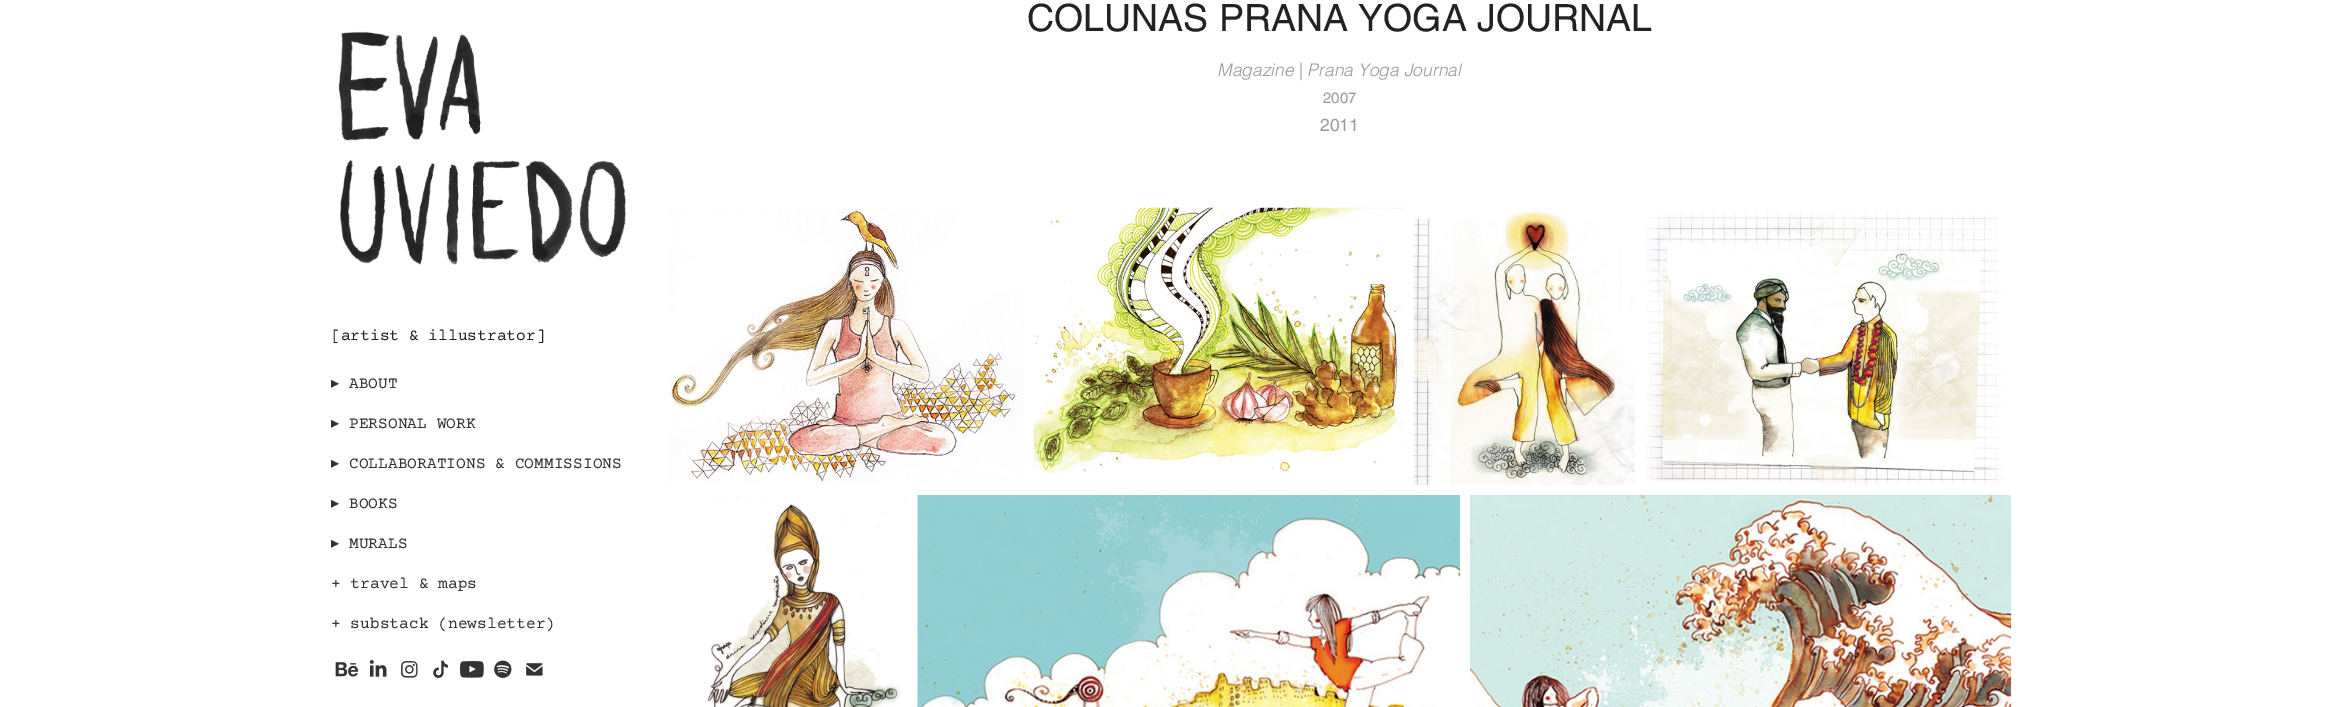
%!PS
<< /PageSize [2342 707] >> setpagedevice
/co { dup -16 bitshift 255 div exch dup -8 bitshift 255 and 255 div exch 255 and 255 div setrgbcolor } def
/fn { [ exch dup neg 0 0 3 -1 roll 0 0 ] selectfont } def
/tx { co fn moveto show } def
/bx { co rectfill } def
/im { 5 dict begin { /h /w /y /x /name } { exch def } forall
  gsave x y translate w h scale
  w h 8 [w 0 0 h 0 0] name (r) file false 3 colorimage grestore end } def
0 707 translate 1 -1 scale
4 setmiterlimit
0 0 2342 707 16#FFFFFF bx
(media/1.raw) 668 208 356 276 im
(media/2.raw) 1033 207 371 267 im
(media/3.raw) 1413 211 222 274 im
(media/4.raw) 1645 210 359 275 im
(media/5.raw) 707 497 200 210 im
(media/6.raw) 917 495 543 212 im
(media/7.raw) 1470 495 542 212 im
(media/8.raw) 338 31 289 234 im
(media/9.raw) 335 662 24 15 im
(media/10.raw) 369 660 18 17 im
(media/11.raw) 401 661 17 17 im
(media/12.raw) 433 660 15 18 im
(media/13.raw) 460 661 24 17 im
(media/14.raw) 494 660 18 18 im
(media/15.raw) 526 663 17 13 im
(COLUNAS PRANA YOGA JOURNAL) 1027 31 /Helvetica-Regular 37.5 16#222222 tx
(Magazine | Prana Yoga Journal) 1217 76 /Helvetica-LightItalic 17.5 16#999999 tx
(2007) 1323 103 /Helvetica-Regular 15 16#999999 tx
(2011) 1320 131 /Helvetica-Regular 17.5 16#999999 tx
([artist & illustrator]) 331 340 /CourierPrime-Regular 16.25 16#222222 tx
(▸) 331 388 /DejaVuSans-Regular 16.25 16#333333 tx
(ABOUT) 349 388 /CourierPrime-Regular 16.25 16#333333 tx
(▸) 331 428 /DejaVuSans-Regular 16.25 16#333333 tx
(PERSONAL WORK) 349 428 /CourierPrime-Regular 16.25 16#333333 tx
(▸) 331 468 /DejaVuSans-Regular 16.25 16#333333 tx
(COLLABORATIONS & COMMISSIONS) 349 468 /CourierPrime-Regular 16.25 16#333333 tx
(▸) 331 508 /DejaVuSans-Regular 16.25 16#333333 tx
(BOOKS) 349 508 /CourierPrime-Regular 16.25 16#333333 tx
(▸) 331 548 /DejaVuSans-Regular 16.25 16#333333 tx
(MURALS) 349 548 /CourierPrime-Regular 16.25 16#333333 tx
(+ travel & maps) 331 588 /CourierPrime-Regular 16.25 16#333333 tx
(+ substack \(newsletter\)) 331 628 /CourierPrime-Regular 16.25 16#333333 tx
showpage
